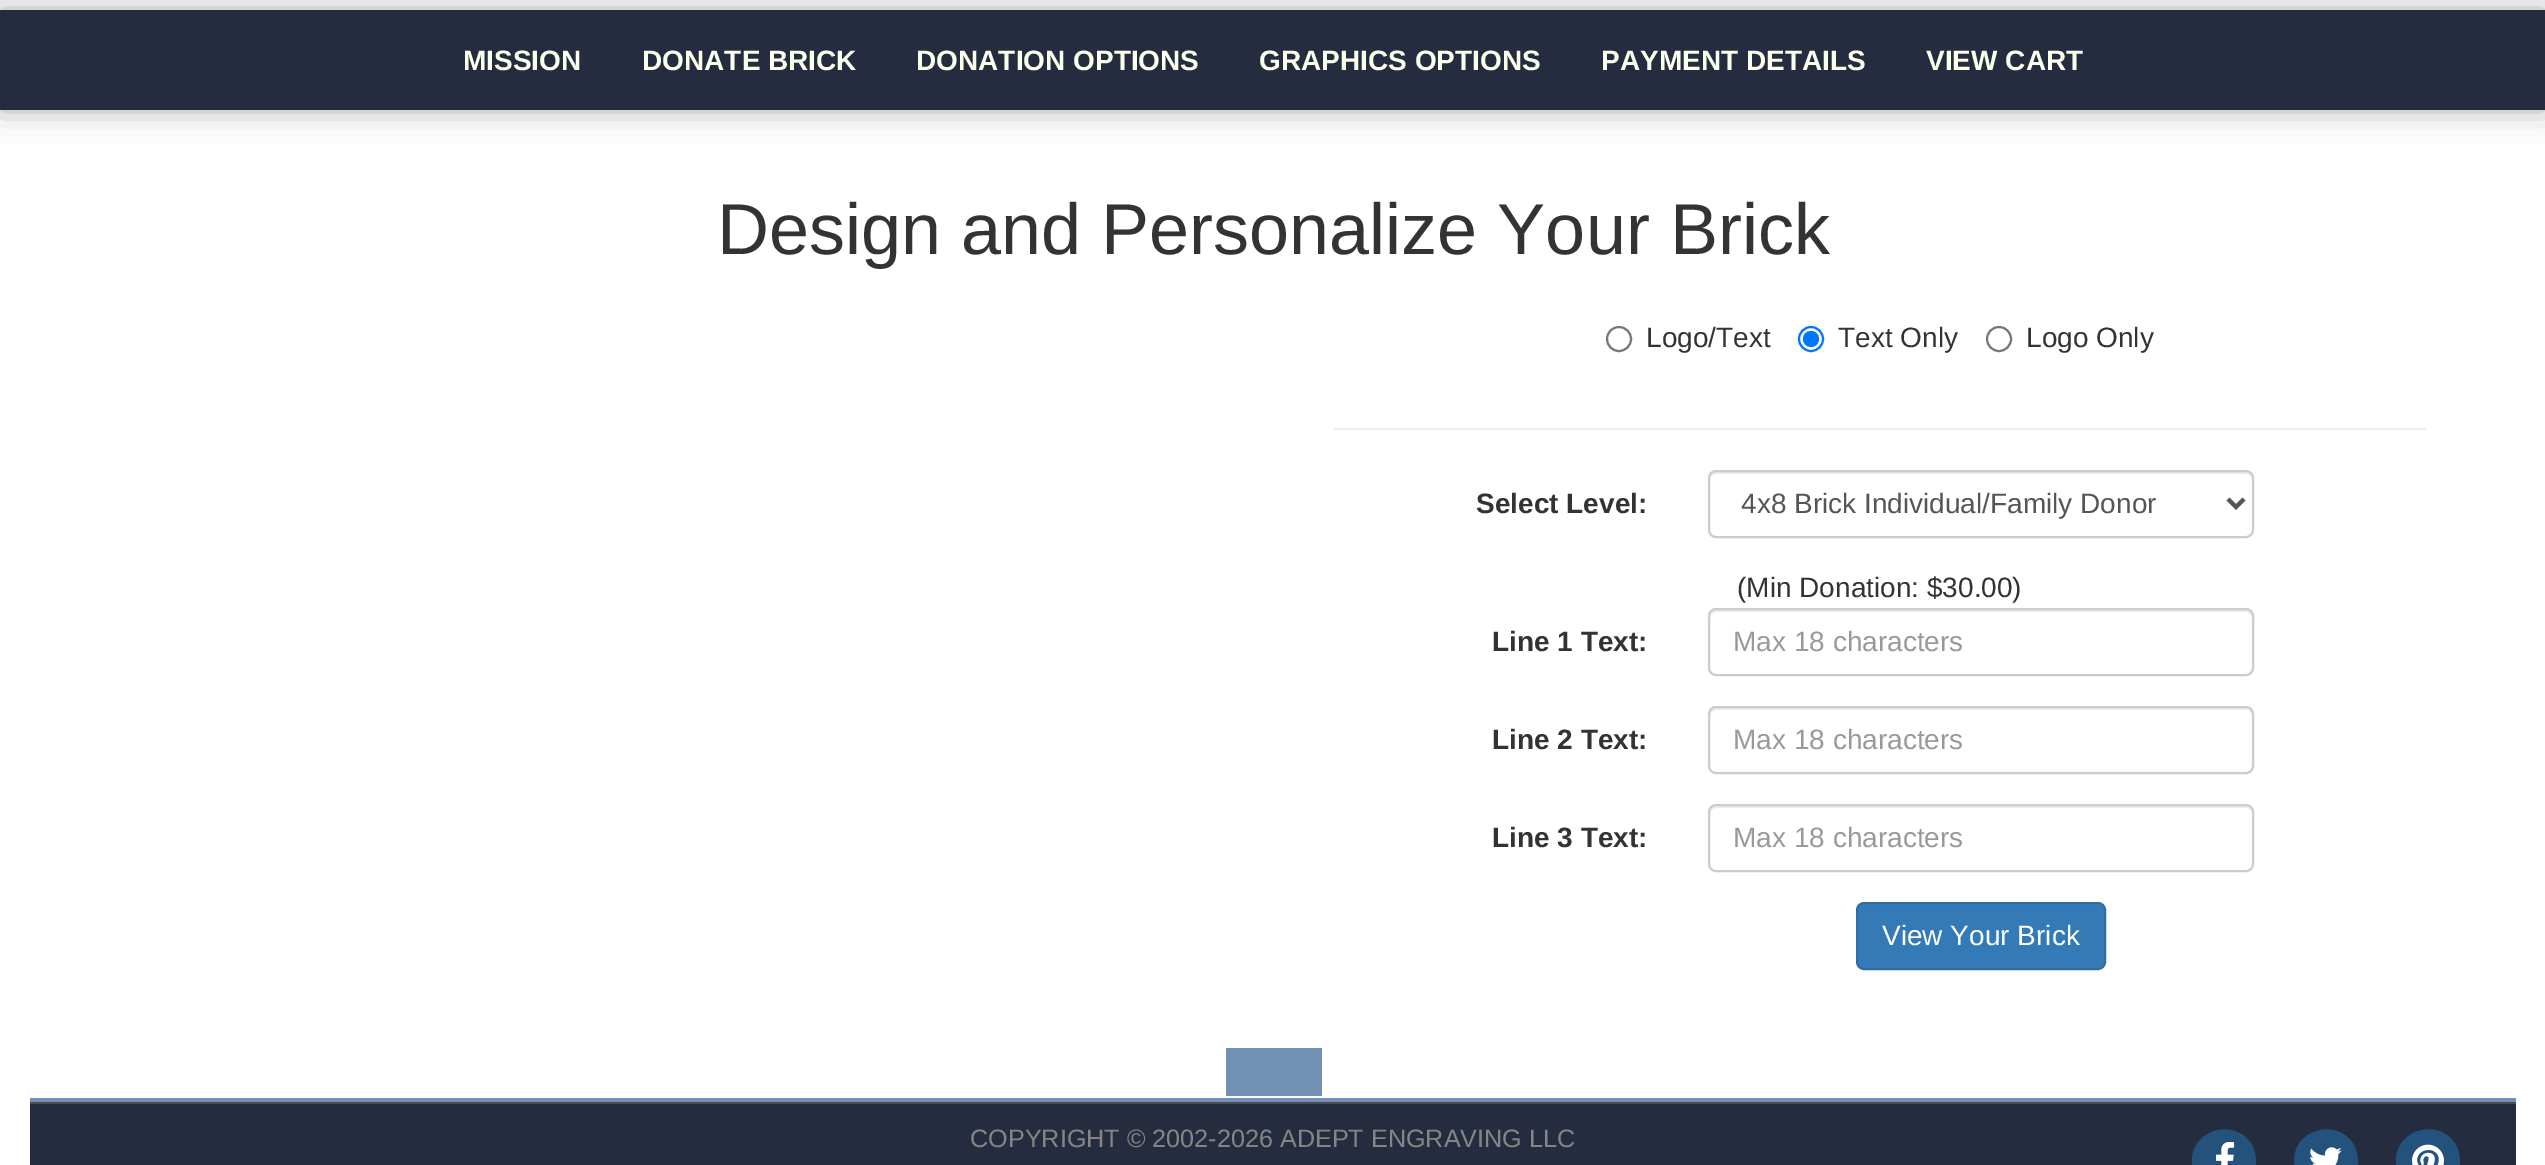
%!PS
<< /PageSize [2545 1165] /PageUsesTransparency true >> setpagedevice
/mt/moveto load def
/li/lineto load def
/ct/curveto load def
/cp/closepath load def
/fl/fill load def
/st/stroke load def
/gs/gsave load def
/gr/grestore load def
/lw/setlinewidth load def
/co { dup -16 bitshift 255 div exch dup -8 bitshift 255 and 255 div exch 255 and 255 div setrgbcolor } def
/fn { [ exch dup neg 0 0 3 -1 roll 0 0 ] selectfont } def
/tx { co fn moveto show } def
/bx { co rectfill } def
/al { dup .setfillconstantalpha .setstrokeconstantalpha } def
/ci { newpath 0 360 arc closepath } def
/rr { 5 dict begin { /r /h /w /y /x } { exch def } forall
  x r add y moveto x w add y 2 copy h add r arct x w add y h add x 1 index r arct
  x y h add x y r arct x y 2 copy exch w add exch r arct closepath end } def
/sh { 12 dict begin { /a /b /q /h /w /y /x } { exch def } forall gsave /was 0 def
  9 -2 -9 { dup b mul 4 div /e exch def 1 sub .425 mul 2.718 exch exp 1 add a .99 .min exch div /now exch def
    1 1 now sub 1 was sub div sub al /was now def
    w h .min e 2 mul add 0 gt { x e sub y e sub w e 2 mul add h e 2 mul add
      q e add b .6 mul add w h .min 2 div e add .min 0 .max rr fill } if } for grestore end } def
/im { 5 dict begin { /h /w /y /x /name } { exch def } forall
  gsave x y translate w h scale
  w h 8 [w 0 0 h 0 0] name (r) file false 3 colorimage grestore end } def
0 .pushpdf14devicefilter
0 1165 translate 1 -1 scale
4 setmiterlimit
0 0 2545 1165 16#FFFFFF bx
16#969696 co
0 10 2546 100 0 15 .8 sh
0 10 2545 100 16#252C3F bx
16#767676 co
2 lw
1619 339 12 ci st
16#0075FF co
1811 339 12 ci st
1811 339 8 ci fl
16#767676 co
1999 339 12 ci st
1334 428 1092 2 16#EEEEEE bx
16#ECECEC co
1716 474 mt 2246 474 li 2249 474 2252 477 2252 480 ct 2252 478 li 2252 475 2249 472 2246 472 ct 1716 472 li 1713 472 1710 475 1710 478 ct 1710 480 li 1710 477 1713 474 1716 474 ct cp fl
16#CCCCCC co
1709 471 544 66 7 rr st
16#555555 co
4 lw
2228 499 mt 2236 507 li 2244 499 li st
16#ECECEC co
1716 612 mt 2246 612 li 2249 612 2252 615 2252 618 ct 2252 616 li 2252 613 2249 610 2246 610 ct 1716 610 li 1713 610 1710 613 1710 616 ct 1710 618 li 1710 615 1713 612 1716 612 ct cp fl
16#CCCCCC co
2 lw
1709 609 544 66 7 rr st
16#ECECEC co
1716 710 mt 2246 710 li 2249 710 2252 713 2252 716 ct 2252 714 li 2252 711 2249 708 2246 708 ct 1716 708 li 1713 708 1710 711 1710 714 ct 1710 716 li 1710 713 1713 710 1716 710 ct cp fl
16#CCCCCC co
1709 707 544 66 7 rr st
16#ECECEC co
1716 808 mt 2246 808 li 2249 808 2252 811 2252 814 ct 2252 812 li 2252 809 2249 806 2246 806 ct 1716 806 li 1713 806 1710 809 1710 812 ct 1710 814 li 1710 811 1713 808 1716 808 ct cp fl
16#CCCCCC co
1709 805 544 66 7 rr st
16#337AB7 co
1857 903 248 66 7 rr gs fl gr
16#2E6DA4 co
st
30 1098 2486 4 16#7390B5 bx
1226 1048 96 48 16#7390B5 bx
30 1104 2486 61 16#252C3F bx
30 1102 2486 2 16#4D4D4D bx
16#23527C co
2252 1145 mt 2255 1151 2256 1157 2256 1163 ct 2254 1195 2212 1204 2196 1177 ct 2193 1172 2192 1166 2192 1159 ct 2194 1128 2236 1118 2252 1145 ct cp fl
(media/1.raw) 2216 1142 18 23 im
2354 1145 mt 2357 1151 2358 1157 2358 1163 ct 2356 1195 2314 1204 2298 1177 ct 2295 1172 2294 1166 2294 1159 ct 2296 1128 2338 1118 2354 1145 ct cp fl
(media/2.raw) 2310 1147 32 18 im
2456 1145 mt 2459 1151 2460 1157 2460 1163 ct 2458 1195 2416 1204 2400 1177 ct 2397 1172 2396 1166 2396 1159 ct 2398 1128 2440 1118 2456 1145 ct cp fl
(media/3.raw) 2412 1144 32 21 im
(MISSION) 463 70 /LiberationSans-Bold 28 16#FCFFEC tx
(DONATE BRICK) 642 70 /LiberationSans-Bold 28 16#FCFFEC tx
(DONATION OPTIONS) 916 70 /LiberationSans-Bold 28 16#FCFFEC tx
(GRAPHICS OPTIONS) 1259 70 /LiberationSans-Bold 28 16#FCFFEC tx
(PAYMENT DETAILS) 1601 70 /LiberationSans-Bold 28 16#FCFFEC tx
(VIEW CART) 1926 70 /LiberationSans-Bold 28 16#FCFFEC tx
(Design and Personalize Your Brick) 717 254 /LiberationSans-Regular 72 16#333333 tx
(Logo/Text) 1646 347 /LiberationSans-Regular 28 16#333333 tx
(Text Only) 1838 347 /LiberationSans-Regular 28 16#333333 tx
(Logo Only) 2026 347 /LiberationSans-Regular 28 16#333333 tx
(Select Level:) 1476 513 /LiberationSans-Bold 28 16#333333 tx
(4x8 Brick Individual/Family Donor) 1741 513 /LiberationSans-Regular 28 16#555555 tx
(\(Min Donation: $30.00\)) 1737 597 /LiberationSans-Regular 28 16#333333 tx
(Line 1 Text:) 1492 651 /LiberationSans-Bold 28 16#333333 tx
(Max 18 characters) 1733 651 /LiberationSans-Regular 28 16#999999 tx
(Line 2 Text:) 1492 749 /LiberationSans-Bold 28 16#333333 tx
(Max 18 characters) 1733 749 /LiberationSans-Regular 28 16#999999 tx
(Line 3 Text:) 1492 847 /LiberationSans-Bold 28 16#333333 tx
(Max 18 characters) 1733 847 /LiberationSans-Regular 28 16#999999 tx
(View Your Brick) 1882 945 /LiberationSans-Regular 28 16#FFFFFF tx
(COPYRIGHT © 2002-2026 ADEPT ENGRAVING LLC) 970 1147 /LiberationSans-Regular 25.2 16#858585 tx
.poppdf14devicefilter showpage
